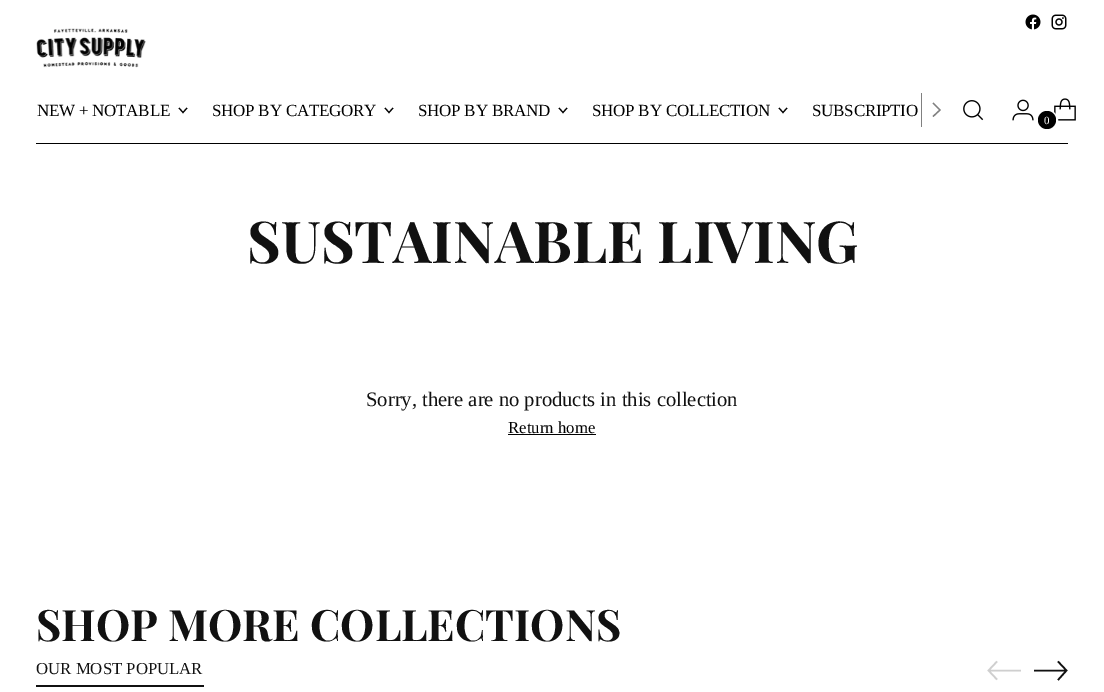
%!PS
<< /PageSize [1104 692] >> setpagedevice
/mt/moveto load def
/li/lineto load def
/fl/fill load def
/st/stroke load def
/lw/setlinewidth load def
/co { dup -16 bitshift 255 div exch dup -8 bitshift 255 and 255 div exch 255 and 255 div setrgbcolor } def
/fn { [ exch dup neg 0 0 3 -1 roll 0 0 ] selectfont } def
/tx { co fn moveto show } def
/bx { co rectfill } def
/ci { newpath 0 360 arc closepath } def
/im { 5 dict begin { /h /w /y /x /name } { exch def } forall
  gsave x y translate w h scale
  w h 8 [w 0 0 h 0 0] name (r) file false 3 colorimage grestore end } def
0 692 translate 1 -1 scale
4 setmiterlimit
0 0 1104 692 16#FFFFFF bx
36 143 1032 1 16#000000 bx
(media/1.raw) 1025 14 16 16 im
(media/2.raw) 1051 14 16 16 im
(media/3.raw) 36 28 110 40 im
1.1 lw
179 108 mt 183 112.5 li 187 108 li st
385 108 mt 389 112.5 li 393 108 li st
559 108 mt 563 112.5 li 567 108 li st
779 108 mt 783 112.5 li 787 108 li st
921 93 1 34 16#808080 bx
1.3 lw
933 116.5 mt 940 110 li 933 103 li st
(media/4.raw) 963 100 21 21 im
(media/5.raw) 1012 99 22 22 im
(media/6.raw) 1054 98 22 23 im
16#FFFFFF co
2 lw
1047.5 120.5 9.5 ci st
16#000000 co
1047 120 9 ci fl
508 434 88 1 16#000000 bx
36 685 168 2 16#111111 bx
16#CFCFCF co
1.6 lw
997 661.5 mt 988.5 670.5 li 997 679.5 li 988.5 670.5 mt 1021 670.5 li st
16#111111 co
1058 680 mt 1066.5 670.5 li 1058 661.5 li 1066.5 670.5 mt 1034 670.5 li st
/LiberationSerif-Regular 17 fn
16#000000 co
37 116 mt -.25 0 (NEW + NOTABLE) ashow
212 116 mt -.25 0 (SHOP BY CATEGORY) ashow
418 116 mt -.25 0 (SHOP BY BRAND) ashow
592 116 mt -.25 0 (SHOP BY COLLECTION) ashow
812 116 mt -.25 0 (SUBSCRIPTIO) ashow
(0) 1044 124 /LiberationSerif-Regular 11 16#FFFFFF tx
(SUSTAINABLE LIVING) 247 263 /PlayfairDisplay-Bold 57.75 16#111111 tx
(Sorry, there are no products in this collection) 366 406 /LiberationSerif-Regular 20.6 16#111111 tx
(Return home) 508 433 /LiberationSerif-Regular 16.75 16#000000 tx
(SHOP MORE COLLECTIONS) 36 641 /PlayfairDisplay-Bold 43.25 16#111111 tx
(OUR MOST POPULAR) 36 674 /LiberationSerif-Regular 16.75 16#111111 tx
showpage
